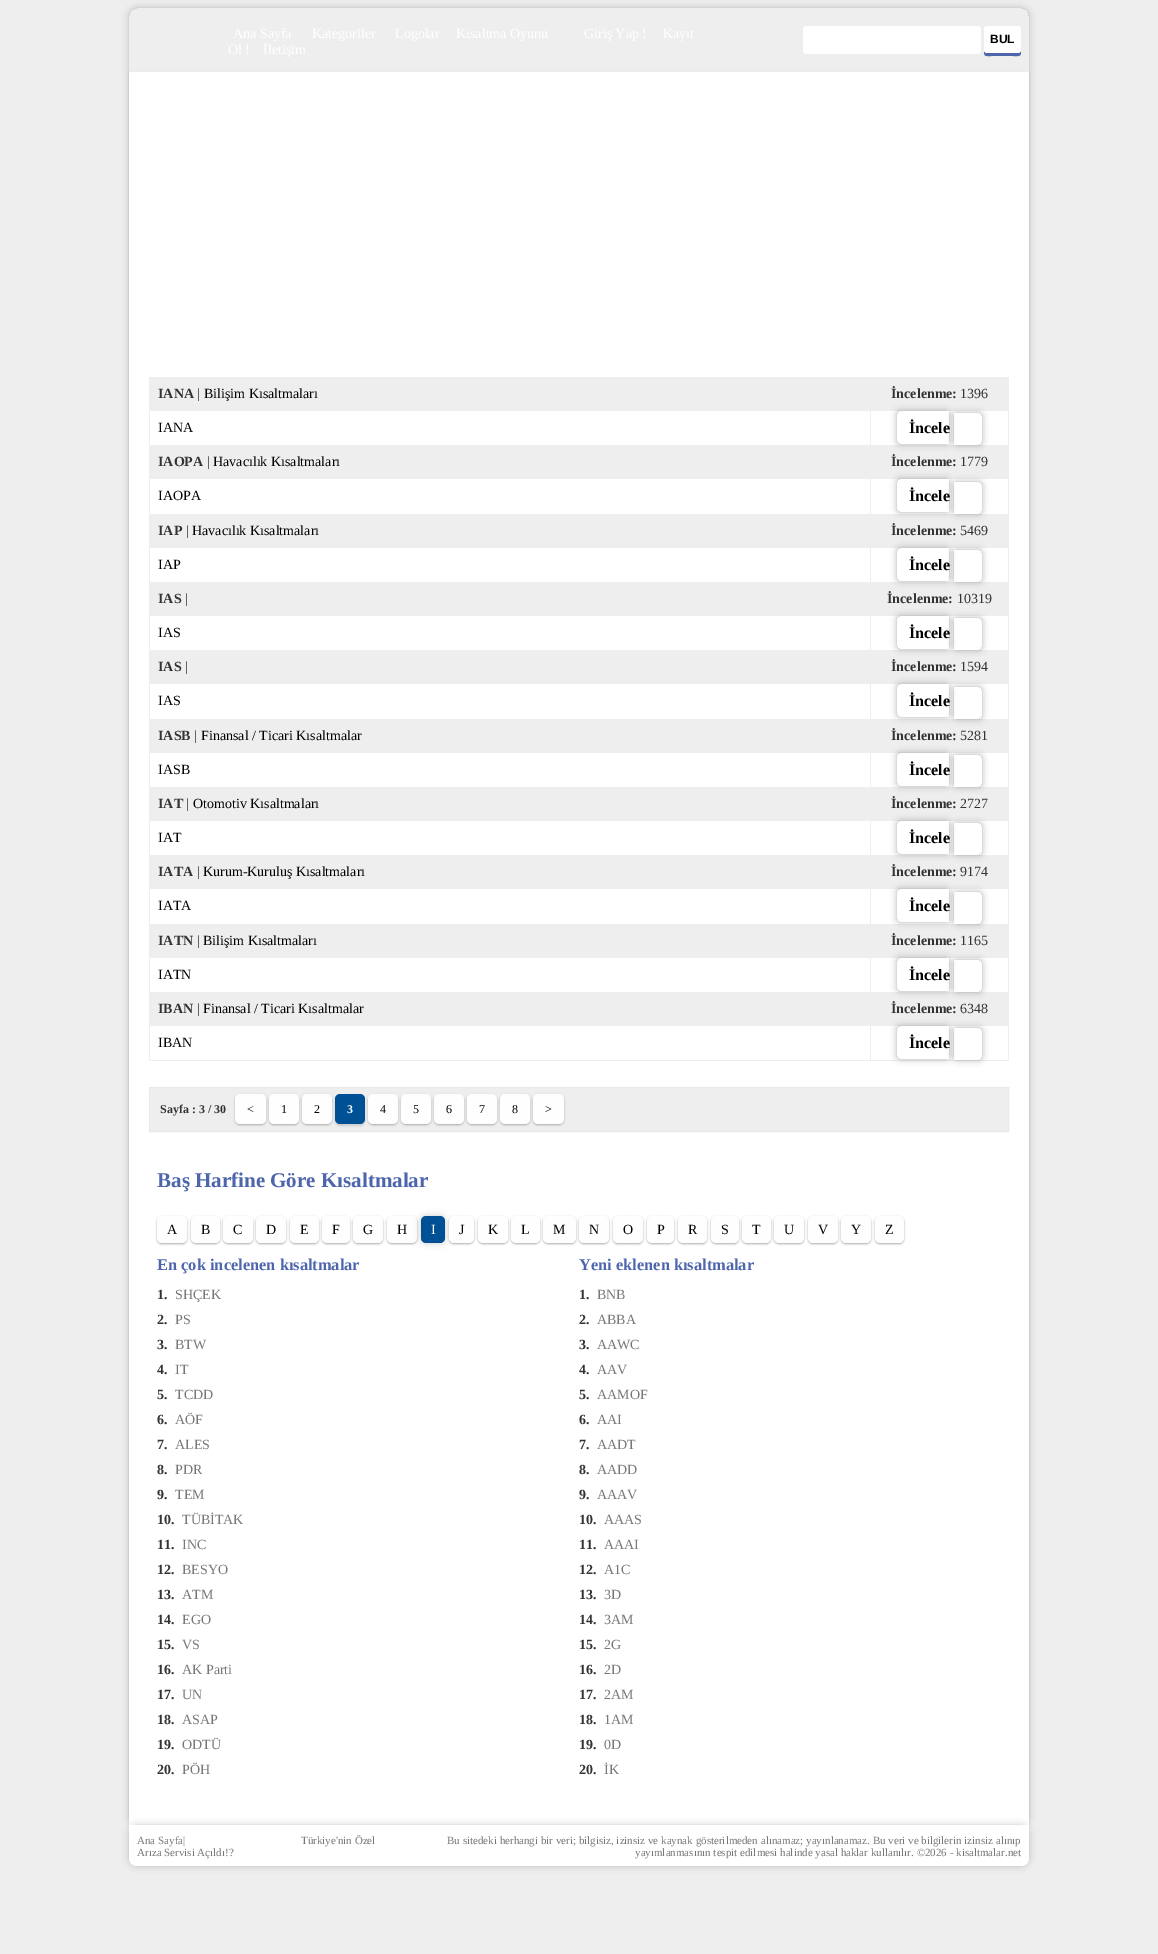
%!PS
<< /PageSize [1158 1954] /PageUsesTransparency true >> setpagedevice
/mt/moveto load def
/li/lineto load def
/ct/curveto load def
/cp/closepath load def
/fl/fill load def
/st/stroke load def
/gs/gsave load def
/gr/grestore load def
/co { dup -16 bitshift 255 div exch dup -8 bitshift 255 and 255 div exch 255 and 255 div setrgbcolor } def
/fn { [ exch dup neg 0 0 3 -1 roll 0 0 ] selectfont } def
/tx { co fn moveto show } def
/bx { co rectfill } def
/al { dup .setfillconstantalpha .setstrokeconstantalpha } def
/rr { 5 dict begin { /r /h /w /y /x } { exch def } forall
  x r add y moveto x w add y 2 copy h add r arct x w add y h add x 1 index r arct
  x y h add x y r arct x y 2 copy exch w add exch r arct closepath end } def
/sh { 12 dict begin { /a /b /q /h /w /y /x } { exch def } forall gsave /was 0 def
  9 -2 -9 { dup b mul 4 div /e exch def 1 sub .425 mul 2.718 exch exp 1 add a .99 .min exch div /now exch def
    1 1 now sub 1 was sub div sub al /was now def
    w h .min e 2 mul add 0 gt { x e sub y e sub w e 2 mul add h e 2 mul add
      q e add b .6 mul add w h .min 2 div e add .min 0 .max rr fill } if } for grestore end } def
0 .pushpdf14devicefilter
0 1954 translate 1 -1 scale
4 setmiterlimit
0 0 1158 1954 16#EEEEEE bx
gs
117 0 mt 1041 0 li 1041 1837 li 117 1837 li cp 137 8 mt 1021 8 li 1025.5 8 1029 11.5 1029 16 ct 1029 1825 li 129 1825 li 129 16 li 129 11.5 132.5 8 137 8 ct cp eoclip newpath
16#000000 co
129 8 900 1817 8 3.5 .2 sh
gr
16#FFFFFF co
803 26 178 28 4 rr fl
16#4D65AD co
984 50 mt 984 57 985 56 992 56 ct 1013 56 li 1020 56 1021 57 1021 50 ct 1021 51.5 1019.5 53 1018 53 ct 987 53 li 985.5 53 984 51.5 984 50 ct cp fl
16#FFFFFF co
984 26 37 27 3 rr fl
16#000000 co
129 73 900 1753 0 1 .1 sh
129 72 900 1753 16#FFFFFF bx
149 377 860 684 16#EEEEEE bx
150 411 720 34 16#FFFFFF bx
871 411 137 34 16#FFFFFF bx
gs
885 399 mt 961 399 li 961 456 li 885 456 li cp 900 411 mt 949 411 li 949 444 li 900 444 li 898.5 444 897 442.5 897 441 ct 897 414 li 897 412.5 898.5 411 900 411 ct cp eoclip newpath
16#000000 co
897 411 52 33 3 3.5 .3 sh
gr
gs
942 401 mt 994 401 li 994 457 li 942 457 li cp 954 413 mt 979 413 li 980.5 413 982 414.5 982 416 ct 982 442 li 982 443.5 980.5 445 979 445 ct 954 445 li cp eoclip newpath
16#000000 co
954 413 28 32 3 3.5 .3 sh
gr
150 479 720 35 16#FFFFFF bx
871 479 137 35 16#FFFFFF bx
gs
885 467 mt 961 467 li 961 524 li 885 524 li cp 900 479 mt 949 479 li 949 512 li 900 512 li 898.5 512 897 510.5 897 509 ct 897 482 li 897 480.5 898.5 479 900 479 ct cp eoclip newpath
16#000000 co
897 479 52 33 3 3.5 .3 sh
gr
gs
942 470 mt 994 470 li 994 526 li 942 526 li cp 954 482 mt 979 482 li 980.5 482 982 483.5 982 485 ct 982 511 li 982 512.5 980.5 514 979 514 ct 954 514 li cp eoclip newpath
16#000000 co
954 482 28 32 3 3.5 .3 sh
gr
150 548 720 34 16#FFFFFF bx
871 548 137 34 16#FFFFFF bx
gs
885 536 mt 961 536 li 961 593 li 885 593 li cp 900 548 mt 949 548 li 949 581 li 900 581 li 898.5 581 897 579.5 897 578 ct 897 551 li 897 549.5 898.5 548 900 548 ct cp eoclip newpath
16#000000 co
897 548 52 33 3 3.5 .3 sh
gr
gs
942 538 mt 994 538 li 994 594 li 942 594 li cp 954 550 mt 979 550 li 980.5 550 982 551.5 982 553 ct 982 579 li 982 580.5 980.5 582 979 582 ct 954 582 li cp eoclip newpath
16#000000 co
954 550 28 32 3 3.5 .3 sh
gr
150 616 720 34 16#FFFFFF bx
871 616 137 34 16#FFFFFF bx
gs
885 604 mt 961 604 li 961 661 li 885 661 li cp 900 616 mt 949 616 li 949 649 li 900 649 li 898.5 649 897 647.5 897 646 ct 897 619 li 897 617.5 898.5 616 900 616 ct cp eoclip newpath
16#000000 co
897 616 52 33 3 3.5 .3 sh
gr
gs
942 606 mt 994 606 li 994 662 li 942 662 li cp 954 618 mt 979 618 li 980.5 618 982 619.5 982 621 ct 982 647 li 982 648.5 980.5 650 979 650 ct 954 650 li cp eoclip newpath
16#000000 co
954 618 28 32 3 3.5 .3 sh
gr
150 684 720 35 16#FFFFFF bx
871 684 137 35 16#FFFFFF bx
gs
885 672 mt 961 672 li 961 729 li 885 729 li cp 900 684 mt 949 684 li 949 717 li 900 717 li 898.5 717 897 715.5 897 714 ct 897 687 li 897 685.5 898.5 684 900 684 ct cp eoclip newpath
16#000000 co
897 684 52 33 3 3.5 .3 sh
gr
gs
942 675 mt 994 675 li 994 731 li 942 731 li cp 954 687 mt 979 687 li 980.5 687 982 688.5 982 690 ct 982 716 li 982 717.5 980.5 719 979 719 ct 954 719 li cp eoclip newpath
16#000000 co
954 687 28 32 3 3.5 .3 sh
gr
150 753 720 34 16#FFFFFF bx
871 753 137 34 16#FFFFFF bx
gs
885 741 mt 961 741 li 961 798 li 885 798 li cp 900 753 mt 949 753 li 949 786 li 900 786 li 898.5 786 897 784.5 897 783 ct 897 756 li 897 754.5 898.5 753 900 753 ct cp eoclip newpath
16#000000 co
897 753 52 33 3 3.5 .3 sh
gr
gs
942 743 mt 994 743 li 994 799 li 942 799 li cp 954 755 mt 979 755 li 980.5 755 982 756.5 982 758 ct 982 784 li 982 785.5 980.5 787 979 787 ct 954 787 li cp eoclip newpath
16#000000 co
954 755 28 32 3 3.5 .3 sh
gr
150 821 720 34 16#FFFFFF bx
871 821 137 34 16#FFFFFF bx
gs
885 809 mt 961 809 li 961 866 li 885 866 li cp 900 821 mt 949 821 li 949 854 li 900 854 li 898.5 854 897 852.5 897 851 ct 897 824 li 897 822.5 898.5 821 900 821 ct cp eoclip newpath
16#000000 co
897 821 52 33 3 3.5 .3 sh
gr
gs
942 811 mt 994 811 li 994 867 li 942 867 li cp 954 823 mt 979 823 li 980.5 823 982 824.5 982 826 ct 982 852 li 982 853.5 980.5 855 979 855 ct 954 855 li cp eoclip newpath
16#000000 co
954 823 28 32 3 3.5 .3 sh
gr
150 889 720 35 16#FFFFFF bx
871 889 137 35 16#FFFFFF bx
gs
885 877 mt 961 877 li 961 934 li 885 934 li cp 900 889 mt 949 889 li 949 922 li 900 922 li 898.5 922 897 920.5 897 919 ct 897 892 li 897 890.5 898.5 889 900 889 ct cp eoclip newpath
16#000000 co
897 889 52 33 3 3.5 .3 sh
gr
gs
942 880 mt 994 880 li 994 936 li 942 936 li cp 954 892 mt 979 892 li 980.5 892 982 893.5 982 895 ct 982 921 li 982 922.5 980.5 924 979 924 ct 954 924 li cp eoclip newpath
16#000000 co
954 892 28 32 3 3.5 .3 sh
gr
150 958 720 34 16#FFFFFF bx
871 958 137 34 16#FFFFFF bx
gs
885 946 mt 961 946 li 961 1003 li 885 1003 li cp 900 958 mt 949 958 li 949 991 li 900 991 li 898.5 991 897 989.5 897 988 ct 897 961 li 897 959.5 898.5 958 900 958 ct cp eoclip newpath
16#000000 co
897 958 52 33 3 3.5 .3 sh
gr
gs
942 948 mt 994 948 li 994 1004 li 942 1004 li cp 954 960 mt 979 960 li 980.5 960 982 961.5 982 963 ct 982 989 li 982 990.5 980.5 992 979 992 ct 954 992 li cp eoclip newpath
16#000000 co
954 960 28 32 3 3.5 .3 sh
gr
150 1026 720 34 16#FFFFFF bx
871 1026 137 34 16#FFFFFF bx
gs
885 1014 mt 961 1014 li 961 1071 li 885 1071 li cp 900 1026 mt 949 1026 li 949 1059 li 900 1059 li 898.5 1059 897 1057.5 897 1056 ct 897 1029 li 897 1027.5 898.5 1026 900 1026 ct cp eoclip newpath
16#000000 co
897 1026 52 33 3 3.5 .3 sh
gr
gs
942 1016 mt 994 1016 li 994 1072 li 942 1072 li cp 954 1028 mt 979 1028 li 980.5 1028 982 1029.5 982 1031 ct 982 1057 li 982 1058.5 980.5 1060 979 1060 ct 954 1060 li cp eoclip newpath
16#000000 co
954 1028 28 32 3 3.5 .3 sh
gr
16#EEEEEE co
149.5 1087.5 mt 1008.5 1087.5 li 1008.5 1131.5 li 149.5 1131.5 li cp gs fl gr
16#E9E9E9 co
st
16#AAAAAA co
235 1095 31 30 5 1 1 sh
16#FEFEFE co
235 1094 31 30 5 rr fl
16#AAAAAA co
269 1095 30 30 5 1 1 sh
16#FEFEFE co
269 1094 30 30 5 rr fl
16#AAAAAA co
302 1095 30 30 5 1 1 sh
16#FEFEFE co
302 1094 30 30 5 rr fl
16#CCCCCC co
335 1096 30 30 5 1 1 sh
16#005096 co
335 1094 30 30 5 rr fl
16#AAAAAA co
368 1095 30 30 5 1 1 sh
16#FEFEFE co
368 1094 30 30 5 rr fl
16#AAAAAA co
401 1095 30 30 5 1 1 sh
16#FEFEFE co
401 1094 30 30 5 rr fl
16#AAAAAA co
434 1095 30 30 5 1 1 sh
16#FEFEFE co
434 1094 30 30 5 rr fl
16#AAAAAA co
467 1095 30 30 5 1 1 sh
16#FEFEFE co
467 1094 30 30 5 rr fl
16#AAAAAA co
500 1095 30 30 5 1 1 sh
16#FEFEFE co
500 1094 30 30 5 rr fl
16#AAAAAA co
533 1095 31 30 5 1 1 sh
16#FEFEFE co
533 1094 31 30 5 rr fl
16#AAAAAA co
157 1217 30 27 5 1 1 sh
16#FEFEFE co
157 1216 30 27 5 rr fl
16#AAAAAA co
191 1217 29 27 5 1 1 sh
16#FEFEFE co
191 1216 29 27 5 rr fl
16#AAAAAA co
223 1217 30 27 5 1 1 sh
16#FEFEFE co
223 1216 30 27 5 rr fl
16#AAAAAA co
256 1217 30 27 5 1 1 sh
16#FEFEFE co
256 1216 30 27 5 rr fl
16#AAAAAA co
290 1217 29 27 5 1 1 sh
16#FEFEFE co
290 1216 29 27 5 rr fl
16#AAAAAA co
322 1217 28 27 5 1 1 sh
16#FEFEFE co
322 1216 28 27 5 rr fl
16#AAAAAA co
353 1217 30 27 5 1 1 sh
16#FEFEFE co
353 1216 30 27 5 rr fl
16#AAAAAA co
387 1217 30 27 5 1 1 sh
16#FEFEFE co
387 1216 30 27 5 rr fl
16#000000 co
421 1216 24 27 5 3.5 .2 sh
16#005096 co
421 1216 24 27 5 rr fl
16#AAAAAA co
449 1217 25 27 5 1 1 sh
16#FEFEFE co
449 1216 25 27 5 rr fl
16#AAAAAA co
478 1217 30 27 5 1 1 sh
16#FEFEFE co
478 1216 30 27 5 rr fl
16#AAAAAA co
511 1217 29 27 5 1 1 sh
16#FEFEFE co
511 1216 29 27 5 rr fl
16#AAAAAA co
543 1217 33 27 5 1 1 sh
16#FEFEFE co
543 1216 33 27 5 rr fl
16#AAAAAA co
579 1217 30 27 5 1 1 sh
16#FEFEFE co
579 1216 30 27 5 rr fl
16#AAAAAA co
613 1217 30 27 5 1 1 sh
16#FEFEFE co
613 1216 30 27 5 rr fl
16#AAAAAA co
647 1217 27 27 5 1 1 sh
16#FEFEFE co
647 1216 27 27 5 rr fl
16#AAAAAA co
678 1217 29 27 5 1 1 sh
16#FEFEFE co
678 1216 29 27 5 rr fl
16#AAAAAA co
711 1217 28 27 5 1 1 sh
16#FEFEFE co
711 1216 28 27 5 rr fl
16#AAAAAA co
742 1217 29 27 5 1 1 sh
16#FEFEFE co
742 1216 29 27 5 rr fl
16#AAAAAA co
774 1217 30 27 5 1 1 sh
16#FEFEFE co
774 1216 30 27 5 rr fl
16#AAAAAA co
808 1217 30 27 5 1 1 sh
16#FEFEFE co
808 1216 30 27 5 rr fl
16#AAAAAA co
841 1217 30 27 5 1 1 sh
16#FEFEFE co
841 1216 30 27 5 rr fl
16#AAAAAA co
875 1217 29 27 5 1 1 sh
16#FEFEFE co
875 1216 29 27 5 rr fl
16#000000 co
129 1825 900 41 8 3.5 .2 sh
16#FFFFFF co
129 1825 mt 1029 1825 li 1029 1858 li 1029 1862.5 1025.5 1866 1021 1866 ct 137 1866 li 132.5 1866 129 1862.5 129 1858 ct cp fl
(Ana Sayfa) 233 38 /LiberationSerif-Regular 14 16#FFFFFF tx
(Kategoriler) 312 38 /LiberationSerif-Regular 14 16#FFFFFF tx
(Logolar) 395 38 /LiberationSerif-Regular 14 16#FFFFFF tx
(Kısaltma Oyunu) 456 38 /LiberationSerif-Regular 14 16#FFFFFF tx
(Giriş Yap !) 584 38 /LiberationSerif-Regular 14 16#FFFFFF tx
(Kayıt) 663 38 /LiberationSerif-Regular 14 16#FFFFFF tx
(Ol !) 228 54 /LiberationSerif-Regular 14 16#FFFFFF tx
(İletişim) 263 54 /LiberationSerif-Regular 14 16#FFFFFF tx
(BUL) 990 43 /LiberationSans-Bold 12 16#000000 tx
(IANA) 158 398 /LiberationSerif-Bold 14 16#333333 tx
(|) 197 398 /LiberationSerif-Regular 14 16#333333 tx
(Bilişim Kısaltmaları) 204 398 /LiberationSerif-Regular 14 16#000000 tx
(İncelenme:) 891 398 /LiberationSerif-Bold 14 16#333333 tx
(1396) 960 398 /LiberationSerif-Regular 14 16#333333 tx
(IANA) 158 432 /LiberationSerif-Regular 14 16#000000 tx
(İncele) 909 433 /LiberationSerif-Bold 16 16#000000 tx
(IAOPA) 158 466 /LiberationSerif-Bold 14 16#333333 tx
(|) 207 466 /LiberationSerif-Regular 14 16#333333 tx
(Havacılık Kısaltmaları) 213 466 /LiberationSerif-Regular 14 16#000000 tx
(İncelenme:) 891 466 /LiberationSerif-Bold 14 16#333333 tx
(1779) 960 466 /LiberationSerif-Regular 14 16#333333 tx
(IAOPA) 158 500 /LiberationSerif-Regular 14 16#000000 tx
(İncele) 909 501 /LiberationSerif-Bold 16 16#000000 tx
(IAP) 158 535 /LiberationSerif-Bold 14 16#333333 tx
(|) 186 535 /LiberationSerif-Regular 14 16#333333 tx
(Havacılık Kısaltmaları) 192 535 /LiberationSerif-Regular 14 16#000000 tx
(İncelenme:) 891 535 /LiberationSerif-Bold 14 16#333333 tx
(5469) 960 535 /LiberationSerif-Regular 14 16#333333 tx
(IAP) 158 569 /LiberationSerif-Regular 14 16#000000 tx
(İncele) 909 570 /LiberationSerif-Bold 16 16#000000 tx
(IAS) 158 603 /LiberationSerif-Bold 14 16#333333 tx
(|) 185 603 /LiberationSerif-Regular 14 16#333333 tx
(İncelenme:) 887 603 /LiberationSerif-Bold 14 16#333333 tx
(10319) 957 603 /LiberationSerif-Regular 14 16#333333 tx
(IAS) 158 637 /LiberationSerif-Regular 14 16#000000 tx
(İncele) 909 638 /LiberationSerif-Bold 16 16#000000 tx
(IAS) 158 671 /LiberationSerif-Bold 14 16#333333 tx
(|) 185 671 /LiberationSerif-Regular 14 16#333333 tx
(İncelenme:) 891 671 /LiberationSerif-Bold 14 16#333333 tx
(1594) 960 671 /LiberationSerif-Regular 14 16#333333 tx
(IAS) 158 705 /LiberationSerif-Regular 14 16#000000 tx
(İncele) 909 706 /LiberationSerif-Bold 16 16#000000 tx
(IASB) 158 740 /LiberationSerif-Bold 14 16#333333 tx
(|) 194 740 /LiberationSerif-Regular 14 16#333333 tx
(Finansal / Ticari Kısaltmalar) 201 740 /LiberationSerif-Regular 14 16#000000 tx
(İncelenme:) 891 740 /LiberationSerif-Bold 14 16#333333 tx
(5281) 960 740 /LiberationSerif-Regular 14 16#333333 tx
(IASB) 158 774 /LiberationSerif-Regular 14 16#000000 tx
(İncele) 909 775 /LiberationSerif-Bold 16 16#000000 tx
(IAT) 158 808 /LiberationSerif-Bold 14 16#333333 tx
(|) 186 808 /LiberationSerif-Regular 14 16#333333 tx
(Otomotiv Kısaltmaları) 193 808 /LiberationSerif-Regular 14 16#000000 tx
(İncelenme:) 891 808 /LiberationSerif-Bold 14 16#333333 tx
(2727) 960 808 /LiberationSerif-Regular 14 16#333333 tx
(IAT) 158 842 /LiberationSerif-Regular 14 16#000000 tx
(İncele) 909 843 /LiberationSerif-Bold 16 16#000000 tx
(IATA) 158 876 /LiberationSerif-Bold 14 16#333333 tx
(|) 197 876 /LiberationSerif-Regular 14 16#333333 tx
(Kurum-Kuruluş Kısaltmaları) 203 876 /LiberationSerif-Regular 14 16#000000 tx
(İncelenme:) 891 876 /LiberationSerif-Bold 14 16#333333 tx
(9174) 960 876 /LiberationSerif-Regular 14 16#333333 tx
(IATA) 158 910 /LiberationSerif-Regular 14 16#000000 tx
(İncele) 909 911 /LiberationSerif-Bold 16 16#000000 tx
(IATN) 158 945 /LiberationSerif-Bold 14 16#333333 tx
(|) 197 945 /LiberationSerif-Regular 14 16#333333 tx
(Bilişim Kısaltmaları) 203 945 /LiberationSerif-Regular 14 16#000000 tx
(İncelenme:) 891 945 /LiberationSerif-Bold 14 16#333333 tx
(1165) 960 945 /LiberationSerif-Regular 14 16#333333 tx
(IATN) 158 979 /LiberationSerif-Regular 14 16#000000 tx
(İncele) 909 980 /LiberationSerif-Bold 16 16#000000 tx
(IBAN) 158 1013 /LiberationSerif-Bold 14 16#333333 tx
(|) 197 1013 /LiberationSerif-Regular 14 16#333333 tx
(Finansal / Ticari Kısaltmalar) 203 1013 /LiberationSerif-Regular 14 16#000000 tx
(İncelenme:) 891 1013 /LiberationSerif-Bold 14 16#333333 tx
(6348) 960 1013 /LiberationSerif-Regular 14 16#333333 tx
(IBAN) 158 1047 /LiberationSerif-Regular 14 16#000000 tx
(İncele) 909 1048 /LiberationSerif-Bold 16 16#000000 tx
(Sayfa : 3 / 30) 160 1113 /LiberationSerif-Bold 12 16#333333 tx
(<) 247 1113 /LiberationSerif-Regular 12 16#000000 tx
(1) 281 1113 /LiberationSerif-Regular 12 16#000000 tx
(2) 314 1113 /LiberationSerif-Regular 12 16#000000 tx
(3) 347 1113 /LiberationSerif-Bold 12 16#FFFFFF tx
(4) 380 1113 /LiberationSerif-Regular 12 16#000000 tx
(5) 413 1113 /LiberationSerif-Regular 12 16#000000 tx
(6) 446 1113 /LiberationSerif-Regular 12 16#000000 tx
(7) 479 1113 /LiberationSerif-Regular 12 16#000000 tx
(8) 512 1113 /LiberationSerif-Regular 12 16#000000 tx
(>) 545 1113 /LiberationSerif-Regular 12 16#000000 tx
(Baş Harfine Göre Kısaltmalar) 157 1187 /LiberationSerif-Bold 21 16#4D65AD tx
(A) 167 1234 /LiberationSerif-Regular 14 16#000000 tx
(B) 201 1234 /LiberationSerif-Regular 14 16#000000 tx
(C) 233 1234 /LiberationSerif-Regular 14 16#000000 tx
(D) 266 1234 /LiberationSerif-Regular 14 16#000000 tx
(E) 300 1234 /LiberationSerif-Regular 14 16#000000 tx
(F) 332 1234 /LiberationSerif-Regular 14 16#000000 tx
(G) 363 1234 /LiberationSerif-Regular 14 16#000000 tx
(H) 397 1234 /LiberationSerif-Regular 14 16#000000 tx
(I) 431 1234 /LiberationSerif-Regular 14 16#FFFFFF tx
(J) 459 1234 /LiberationSerif-Regular 14 16#000000 tx
(K) 488 1234 /LiberationSerif-Regular 14 16#000000 tx
(L) 521 1234 /LiberationSerif-Regular 14 16#000000 tx
(M) 553 1234 /LiberationSerif-Regular 14 16#000000 tx
(N) 589 1234 /LiberationSerif-Regular 14 16#000000 tx
(O) 623 1234 /LiberationSerif-Regular 14 16#000000 tx
(P) 657 1234 /LiberationSerif-Regular 14 16#000000 tx
(R) 688 1234 /LiberationSerif-Regular 14 16#000000 tx
(S) 721 1234 /LiberationSerif-Regular 14 16#000000 tx
(T) 752 1234 /LiberationSerif-Regular 14 16#000000 tx
(U) 784 1234 /LiberationSerif-Regular 14 16#000000 tx
(V) 818 1234 /LiberationSerif-Regular 14 16#000000 tx
(Y) 851 1234 /LiberationSerif-Regular 14 16#000000 tx
(Z) 885 1234 /LiberationSerif-Regular 14 16#000000 tx
(En çok incelenen kısaltmalar) 157 1270 /LiberationSerif-Bold 16.4 16#4D65AD tx
(1.) 157 1299 /LiberationSerif-Bold 14 16#333333 tx
(SHÇEK) 175 1299 /LiberationSerif-Regular 14 16#777777 tx
(2.) 157 1324 /LiberationSerif-Bold 14 16#333333 tx
(PS) 175 1324 /LiberationSerif-Regular 14 16#777777 tx
(3.) 157 1349 /LiberationSerif-Bold 14 16#333333 tx
(BTW) 175 1349 /LiberationSerif-Regular 14 16#777777 tx
(4.) 157 1374 /LiberationSerif-Bold 14 16#333333 tx
(IT) 175 1374 /LiberationSerif-Regular 14 16#777777 tx
(5.) 157 1399 /LiberationSerif-Bold 14 16#333333 tx
(TCDD) 175 1399 /LiberationSerif-Regular 14 16#777777 tx
(6.) 157 1424 /LiberationSerif-Bold 14 16#333333 tx
(AÖF) 175 1424 /LiberationSerif-Regular 14 16#777777 tx
(7.) 157 1449 /LiberationSerif-Bold 14 16#333333 tx
(ALES) 175 1449 /LiberationSerif-Regular 14 16#777777 tx
(8.) 157 1474 /LiberationSerif-Bold 14 16#333333 tx
(PDR) 175 1474 /LiberationSerif-Regular 14 16#777777 tx
(9.) 157 1499 /LiberationSerif-Bold 14 16#333333 tx
(TEM) 175 1499 /LiberationSerif-Regular 14 16#777777 tx
(10.) 157 1524 /LiberationSerif-Bold 14 16#333333 tx
(TÜBİTAK) 182 1524 /LiberationSerif-Regular 14 16#777777 tx
(11.) 157 1549 /LiberationSerif-Bold 14 16#333333 tx
(INC) 182 1549 /LiberationSerif-Regular 14 16#777777 tx
(12.) 157 1574 /LiberationSerif-Bold 14 16#333333 tx
(BESYO) 182 1574 /LiberationSerif-Regular 14 16#777777 tx
(13.) 157 1599 /LiberationSerif-Bold 14 16#333333 tx
(ATM) 182 1599 /LiberationSerif-Regular 14 16#777777 tx
(14.) 157 1624 /LiberationSerif-Bold 14 16#333333 tx
(EGO) 182 1624 /LiberationSerif-Regular 14 16#777777 tx
(15.) 157 1649 /LiberationSerif-Bold 14 16#333333 tx
(VS) 182 1649 /LiberationSerif-Regular 14 16#777777 tx
(16.) 157 1674 /LiberationSerif-Bold 14 16#333333 tx
(AK Parti) 182 1674 /LiberationSerif-Regular 14 16#777777 tx
(17.) 157 1699 /LiberationSerif-Bold 14 16#333333 tx
(UN) 182 1699 /LiberationSerif-Regular 14 16#777777 tx
(18.) 157 1724 /LiberationSerif-Bold 14 16#333333 tx
(ASAP) 182 1724 /LiberationSerif-Regular 14 16#777777 tx
(19.) 157 1749 /LiberationSerif-Bold 14 16#333333 tx
(ODTÜ) 182 1749 /LiberationSerif-Regular 14 16#777777 tx
(20.) 157 1774 /LiberationSerif-Bold 14 16#333333 tx
(PÖH) 182 1774 /LiberationSerif-Regular 14 16#777777 tx
(Yeni eklenen kısaltmalar) 579 1270 /LiberationSerif-Bold 16.4 16#4D65AD tx
(1.) 579 1299 /LiberationSerif-Bold 14 16#333333 tx
(BNB) 597 1299 /LiberationSerif-Regular 14 16#777777 tx
(2.) 579 1324 /LiberationSerif-Bold 14 16#333333 tx
(ABBA) 597 1324 /LiberationSerif-Regular 14 16#777777 tx
(3.) 579 1349 /LiberationSerif-Bold 14 16#333333 tx
(AAWC) 597 1349 /LiberationSerif-Regular 14 16#777777 tx
(4.) 579 1374 /LiberationSerif-Bold 14 16#333333 tx
(AAV) 597 1374 /LiberationSerif-Regular 14 16#777777 tx
(5.) 579 1399 /LiberationSerif-Bold 14 16#333333 tx
(AAMOF) 597 1399 /LiberationSerif-Regular 14 16#777777 tx
(6.) 579 1424 /LiberationSerif-Bold 14 16#333333 tx
(AAI) 597 1424 /LiberationSerif-Regular 14 16#777777 tx
(7.) 579 1449 /LiberationSerif-Bold 14 16#333333 tx
(AADT) 597 1449 /LiberationSerif-Regular 14 16#777777 tx
(8.) 579 1474 /LiberationSerif-Bold 14 16#333333 tx
(AADD) 597 1474 /LiberationSerif-Regular 14 16#777777 tx
(9.) 579 1499 /LiberationSerif-Bold 14 16#333333 tx
(AAAV) 597 1499 /LiberationSerif-Regular 14 16#777777 tx
(10.) 579 1524 /LiberationSerif-Bold 14 16#333333 tx
(AAAS) 604 1524 /LiberationSerif-Regular 14 16#777777 tx
(11.) 579 1549 /LiberationSerif-Bold 14 16#333333 tx
(AAAI) 604 1549 /LiberationSerif-Regular 14 16#777777 tx
(12.) 579 1574 /LiberationSerif-Bold 14 16#333333 tx
(A1C) 604 1574 /LiberationSerif-Regular 14 16#777777 tx
(13.) 579 1599 /LiberationSerif-Bold 14 16#333333 tx
(3D) 604 1599 /LiberationSerif-Regular 14 16#777777 tx
(14.) 579 1624 /LiberationSerif-Bold 14 16#333333 tx
(3AM) 604 1624 /LiberationSerif-Regular 14 16#777777 tx
(15.) 579 1649 /LiberationSerif-Bold 14 16#333333 tx
(2G) 604 1649 /LiberationSerif-Regular 14 16#777777 tx
(16.) 579 1674 /LiberationSerif-Bold 14 16#333333 tx
(2D) 604 1674 /LiberationSerif-Regular 14 16#777777 tx
(17.) 579 1699 /LiberationSerif-Bold 14 16#333333 tx
(2AM) 604 1699 /LiberationSerif-Regular 14 16#777777 tx
(18.) 579 1724 /LiberationSerif-Bold 14 16#333333 tx
(1AM) 604 1724 /LiberationSerif-Regular 14 16#777777 tx
(19.) 579 1749 /LiberationSerif-Bold 14 16#333333 tx
(0D) 604 1749 /LiberationSerif-Regular 14 16#777777 tx
(20.) 579 1774 /LiberationSerif-Bold 14 16#333333 tx
(İK) 604 1774 /LiberationSerif-Regular 14 16#777777 tx
(Ana Sayfa|) 137 1844 /LiberationSerif-Regular 11 16#777777 tx
(Türkiye'nin Özel) 301 1844 /LiberationSerif-Regular 11 16#777777 tx
(Arıza Servisi Açıldı!?) 137 1856 /LiberationSerif-Regular 11 16#777777 tx
(Bu sitedeki herhangi bir veri; bilgisiz, izinsiz ve kaynak gösterilmeden alınamaz; yayınlanamaz. Bu veri ve bilgilerin izinsiz alınıp) 447 1844 /LiberationSerif-Regular 11 16#777777 tx
(yayımlanmasının tespit edilmesi halinde yasal haklar kullanılır. ©2026 - kisaltmalar.net) 635 1856 /LiberationSerif-Regular 11 16#777777 tx
.poppdf14devicefilter showpage
